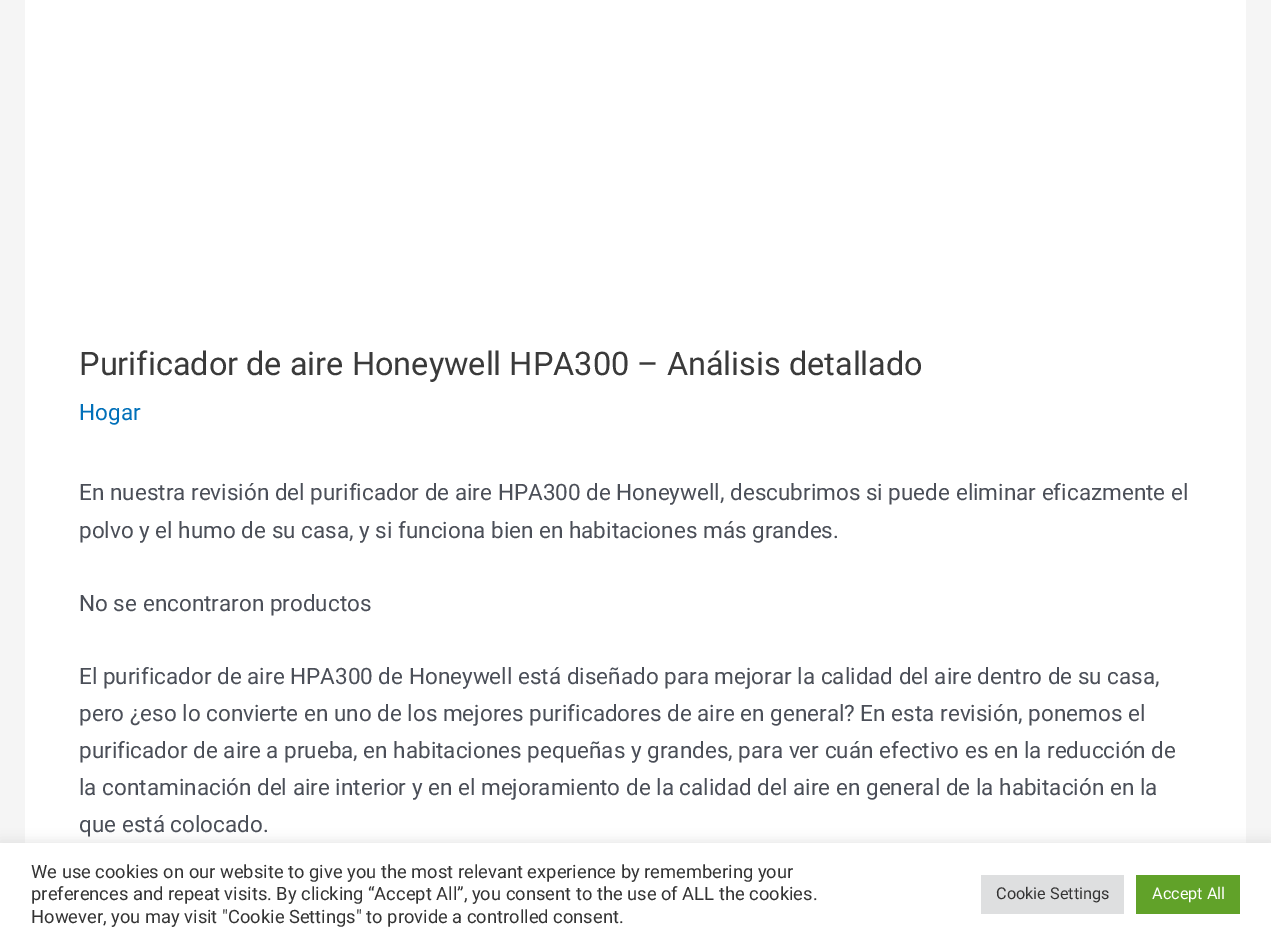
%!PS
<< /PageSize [1271 944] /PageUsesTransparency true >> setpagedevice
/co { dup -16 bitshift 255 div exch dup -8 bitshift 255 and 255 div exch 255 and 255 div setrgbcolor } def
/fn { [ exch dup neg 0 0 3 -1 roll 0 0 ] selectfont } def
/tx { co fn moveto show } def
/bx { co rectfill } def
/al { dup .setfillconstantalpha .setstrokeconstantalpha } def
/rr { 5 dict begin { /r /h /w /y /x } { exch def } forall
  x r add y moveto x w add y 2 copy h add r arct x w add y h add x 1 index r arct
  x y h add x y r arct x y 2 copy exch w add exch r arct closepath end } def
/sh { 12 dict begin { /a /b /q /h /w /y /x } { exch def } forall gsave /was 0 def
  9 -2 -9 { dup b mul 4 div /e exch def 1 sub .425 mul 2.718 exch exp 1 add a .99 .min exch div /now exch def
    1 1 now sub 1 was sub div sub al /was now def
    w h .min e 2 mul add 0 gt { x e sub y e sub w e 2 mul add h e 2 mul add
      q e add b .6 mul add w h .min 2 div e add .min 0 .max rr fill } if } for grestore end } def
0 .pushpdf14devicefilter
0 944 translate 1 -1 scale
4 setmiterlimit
0 0 1271 944 16#F5F5F5 bx
25 0 1221 843 16#FFFFFF bx
16#ACABAB co
0 841 1271 103 0 6 .3 sh
0 843 1271 101 16#FFFFFF bx
981 875 143 39 16#DEDFE0 bx
1136 875 104 39 16#61A229 bx
(Purificador de aire Honeywell HPA300 – Análisis detallado) 79 375 /Roboto-Regular 32.5 16#3A3A3A tx
(Hogar) 79 420 /Roboto-Regular 22.5 16#0170B9 tx
(En nuestra revisión del purificador de aire HPA300 de Honeywell, descubrimos si puede eliminar eficazmente el) 79 500 /Roboto-Regular 22.5 16#4B4F58 tx
(polvo y el humo de su casa, y si funciona bien en habitaciones más grandes.) 79 538 /Roboto-Regular 22.5 16#4B4F58 tx
(No se encontraron productos) 79 611 /Roboto-Regular 22.5 16#4B4F58 tx
(El purificador de aire HPA300 de Honeywell está diseñado para mejorar la calidad del aire dentro de su casa,) 79 684 /Roboto-Regular 22.5 16#4B4F58 tx
(pero ¿eso lo convierte en uno de los mejores purificadores de aire en general? En esta revisión, ponemos el) 79 721 /Roboto-Regular 22.5 16#4B4F58 tx
(purificador de aire a prueba, en habitaciones pequeñas y grandes, para ver cuán efectivo es en la reducción de) 79 758 /Roboto-Regular 22.5 16#4B4F58 tx
(la contaminación del aire interior y en el mejoramiento de la calidad del aire en general de la habitación en la) 79 795 /Roboto-Regular 22.5 16#4B4F58 tx
(que está colocado.) 79 832 /Roboto-Regular 22.5 16#4B4F58 tx
(We use cookies on our website to give you the most relevant experience by remembering your) 31 878 /Roboto-Regular 18.35 16#333333 tx
(preferences and repeat visits. By clicking “Accept All”, you consent to the use of ALL the cookies.) 31 900 /Roboto-Regular 18.35 16#333333 tx
(However, you may visit "Cookie Settings" to provide a controlled consent.) 31 923 /Roboto-Regular 18.35 16#333333 tx
(Cookie Settings) 996 899 /Roboto-Regular 16.25 16#333333 tx
(Accept All) 1152 899 /Roboto-Regular 16.25 16#FFFFFF tx
.poppdf14devicefilter showpage
